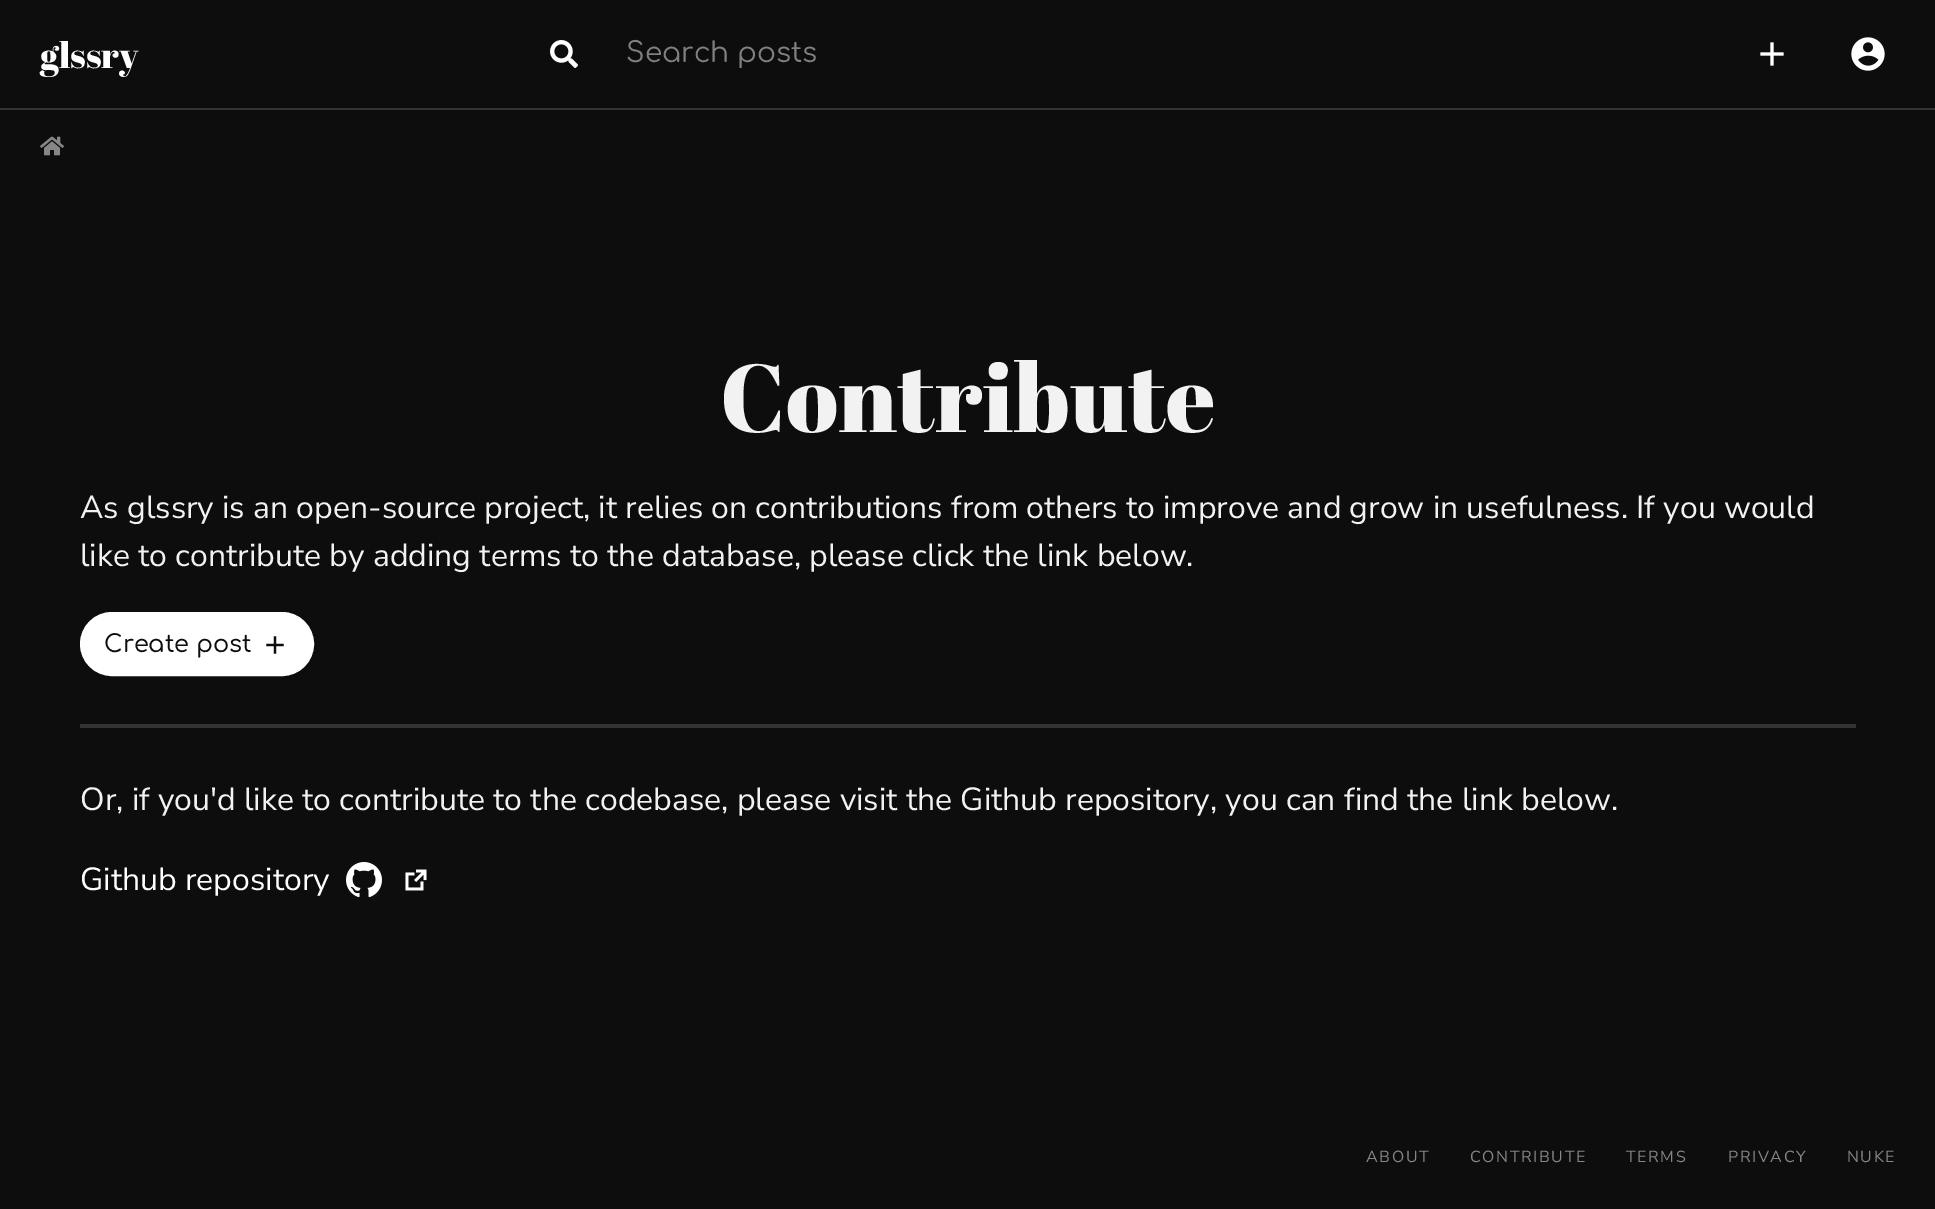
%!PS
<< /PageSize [1935 1209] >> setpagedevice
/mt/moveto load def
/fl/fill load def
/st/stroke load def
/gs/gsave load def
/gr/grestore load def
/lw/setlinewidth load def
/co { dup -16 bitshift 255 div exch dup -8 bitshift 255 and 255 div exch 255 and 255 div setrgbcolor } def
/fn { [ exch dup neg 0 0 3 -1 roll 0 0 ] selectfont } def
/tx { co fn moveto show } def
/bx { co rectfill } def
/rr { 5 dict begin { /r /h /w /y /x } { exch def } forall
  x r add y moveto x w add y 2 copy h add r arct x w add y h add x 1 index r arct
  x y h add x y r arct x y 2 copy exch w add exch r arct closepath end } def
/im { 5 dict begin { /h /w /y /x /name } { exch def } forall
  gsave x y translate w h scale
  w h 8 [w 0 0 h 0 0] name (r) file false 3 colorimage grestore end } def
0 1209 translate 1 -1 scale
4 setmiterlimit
0 0 1935 1209 16#0D0D0D bx
0 108 1935 2 16#333333 bx
(media/1.raw) 550 40 28 28 im
(media/2.raw) 1760 42 24 24 im
(media/3.raw) 1851 37 34 34 im
(media/4.raw) 40 136 24 20 im
16#FFFFFF co
82 614 230 60 30 rr gs fl gr
4 lw
st
(media/5.raw) 266 636 18 18 im
80 724 1776 4 16#333333 bx
(media/6.raw) 346 862 36 36 im
(media/7.raw) 405 869 22 22 im
(glssry) 40 68 /AbrilFatface-Regular 36 16#FFFFFF tx
gs
626 38 684 30 rectclip
(Search posts) 626 62 /Comfortaa-Regular 28 16#808080 tx
gr
(Contribute) 720 432 /AbrilFatface-Regular 96 16#F2F2F2 tx
(As glssry is an open-source project, it relies on contributions from others to improve and grow in usefulness. If you would) 80 518 /NunitoSans-Regular 32 16#F2F2F2 tx
(like to contribute by adding terms to the database, please click the link below.) 80 566 /NunitoSans-Regular 32 16#F2F2F2 tx
(Create post) 104 652 /Comfortaa-Medium 24 16#0D0D0D tx
(Or, if you'd like to contribute to the codebase, please visit the Github repository, you can find the link below.) 80 810 /NunitoSans-Regular 32 16#F2F2F2 tx
(Github repository) 80 890 /NunitoSans-Regular 32 16#FFFFFF tx
/NunitoSans-Regular 16 fn
16#868686 co
1366 1162 mt 1.6 0 (ABOUT) ashow
1470 1162 mt 1.6 0 (CONTRIBUTE) ashow
1626 1162 mt 1.6 0 (TERMS) ashow
1728 1162 mt 1.6 0 (PRIVACY) ashow
1847 1162 mt 1.6 0 (NUKE) ashow
showpage
